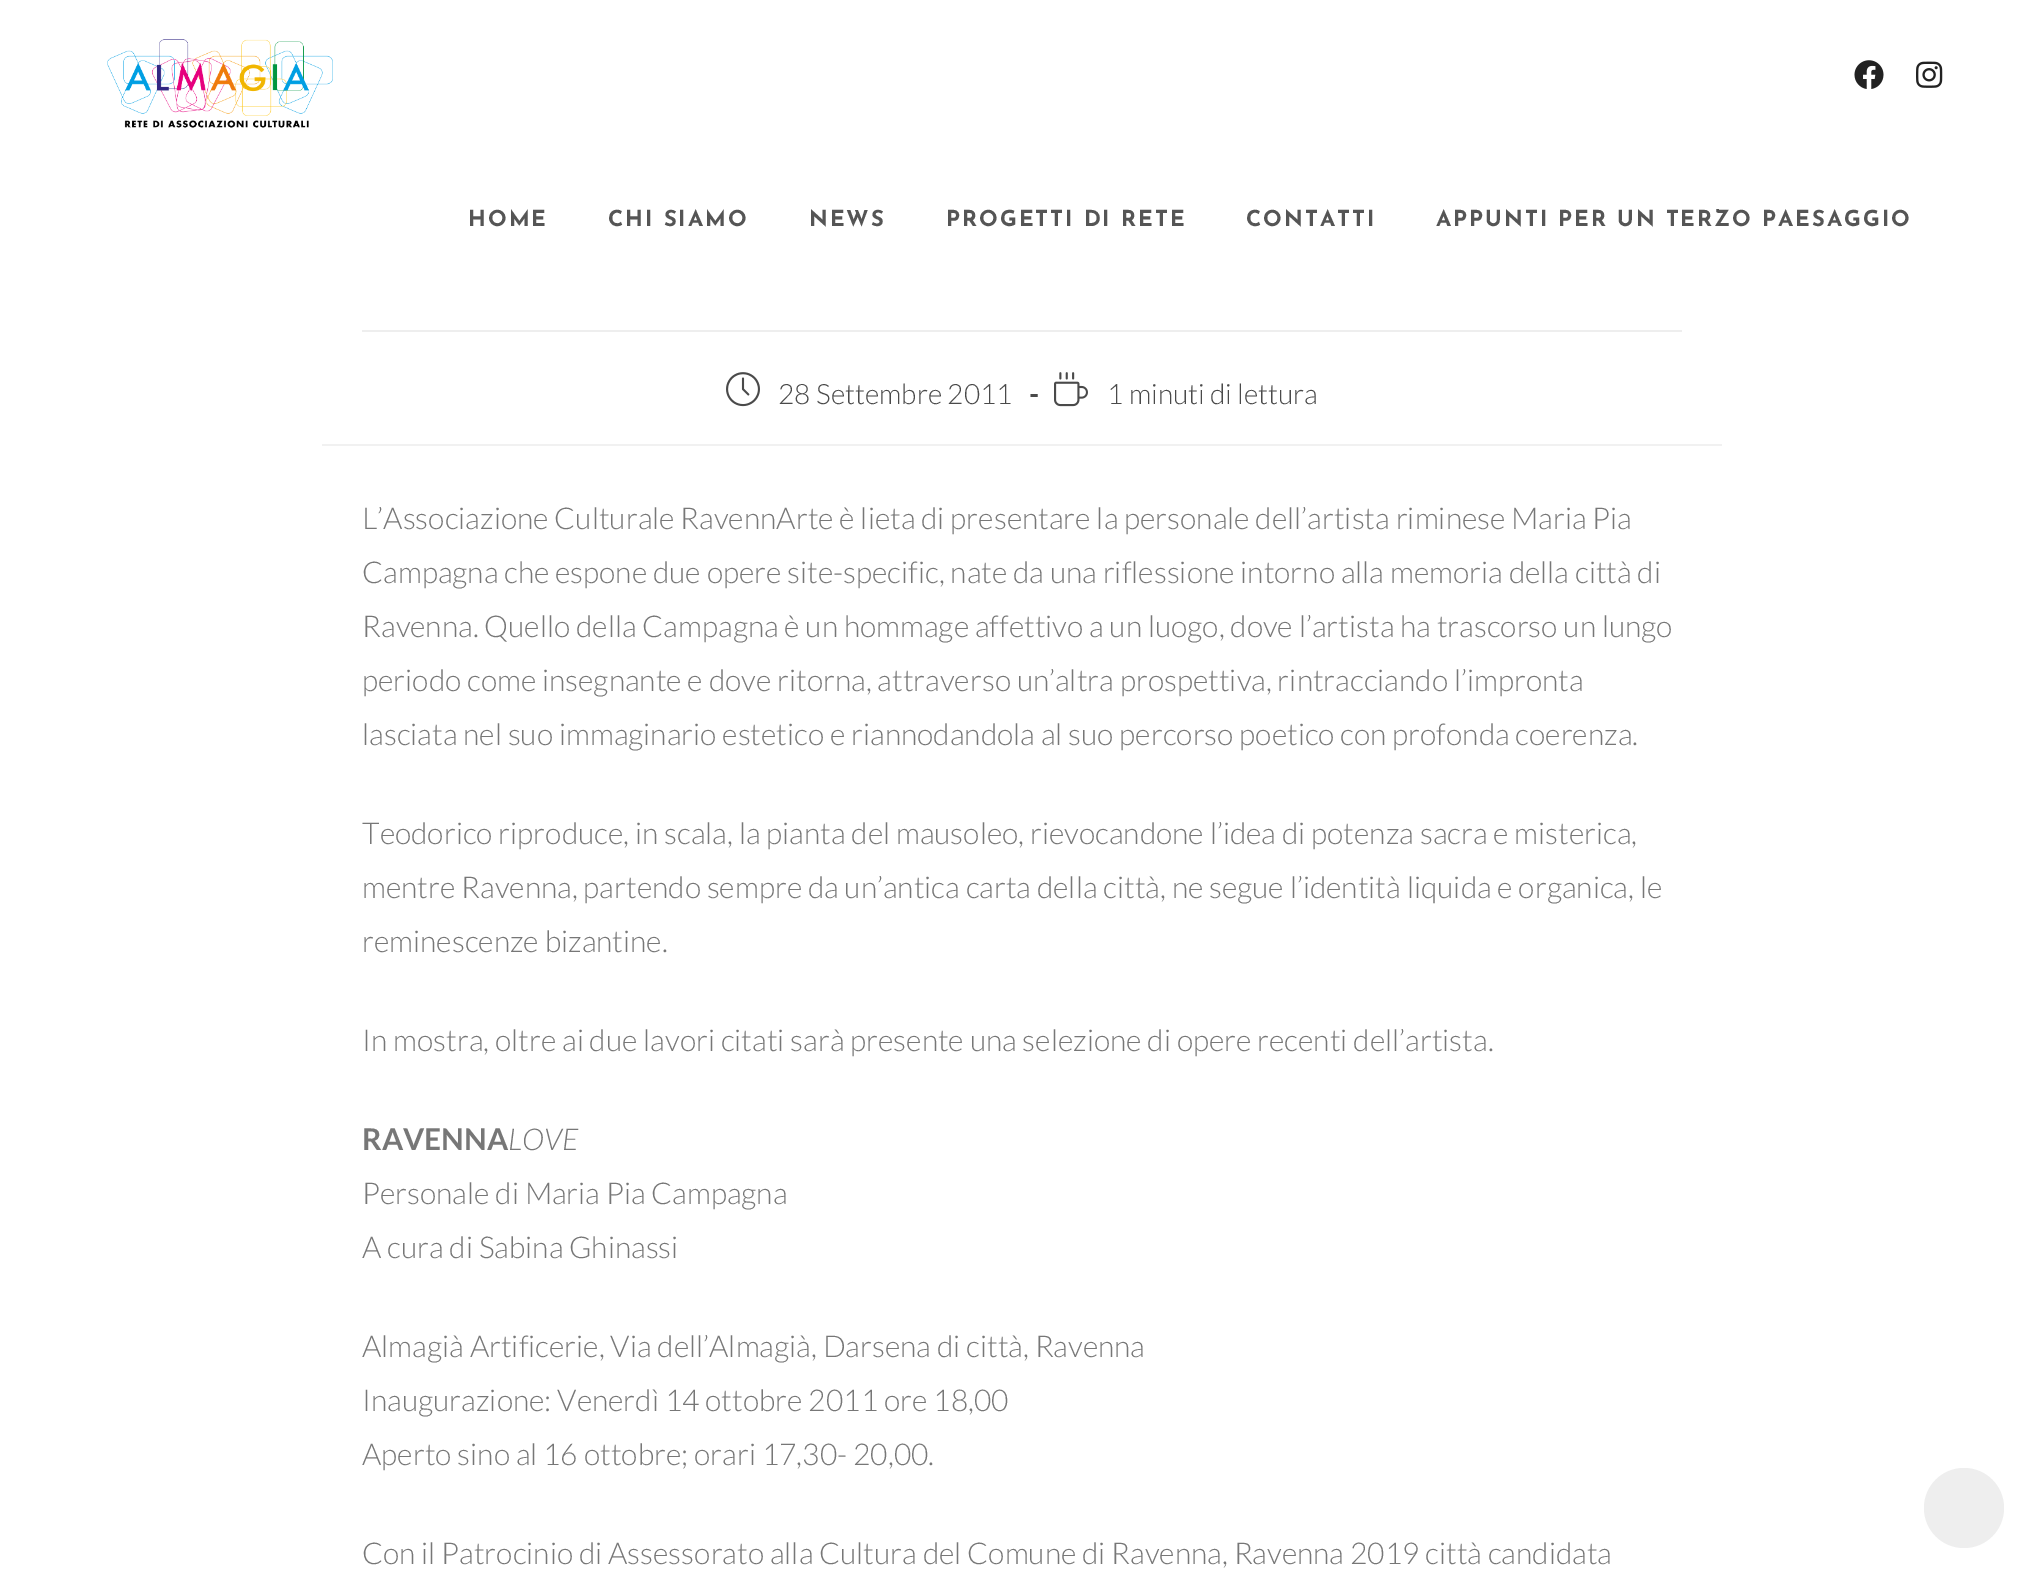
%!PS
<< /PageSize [2044 1588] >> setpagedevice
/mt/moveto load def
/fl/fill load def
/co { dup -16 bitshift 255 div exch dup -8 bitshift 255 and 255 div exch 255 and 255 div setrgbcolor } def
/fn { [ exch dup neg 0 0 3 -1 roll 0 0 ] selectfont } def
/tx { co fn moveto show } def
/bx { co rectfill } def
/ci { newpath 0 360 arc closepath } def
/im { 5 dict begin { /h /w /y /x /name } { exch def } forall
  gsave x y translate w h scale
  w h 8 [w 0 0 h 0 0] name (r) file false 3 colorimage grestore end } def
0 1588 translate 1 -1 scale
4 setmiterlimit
0 0 2044 1588 16#FFFFFF bx
(media/1.raw) 107 39 226 89 im
(media/2.raw) 1854 60 30 29 im
(media/3.raw) 1916 61 27 27 im
362 330 1320 2 16#EEEEEE bx
322 444 1400 2 16#F1F1F1 bx
(media/4.raw) 726 372 34 35 im
(media/5.raw) 1054 372 34 35 im
16#EEEEEE co
1964 1508 40 ci fl
/JosefinSans-Bold 22 fn
16#555555 co
468 226 mt 2 0 (HOME) ashow
608 226 mt 2 0 (CHI SIAMO) ashow
809 226 mt 2 0 (NEWS) ashow
946 226 mt 2 0 (PROGETTI DI RETE) ashow
1246 226 mt 2 0 (CONTATTI) ashow
1436 226 mt 2 0 (APPUNTI PER UN TERZO PAESAGGIO) ashow
(28 Settembre 2011) 778 404 /Lato-Light 28 16#4A4A4A tx
(-) 1029 404 /Lato-Bold 28 16#4A4A4A tx
(1 minuti di lettura) 1107 404 /Lato-Light 28 16#4A4A4A tx
(L’Associazione Culturale RavennArte è lieta di presentare la personale dell’artista riminese Maria Pia) 362 529 /Lato-Light 30 16#777777 tx
(Campagna che espone due opere site-specific, nate da una riflessione intorno alla memoria della città di) 362 583 /Lato-Light 30 16#777777 tx
(Ravenna. Quello della Campagna è un hommage affettivo a un luogo, dove l’artista ha trascorso un lungo) 362 637 /Lato-Light 30 16#777777 tx
(periodo come insegnante e dove ritorna, attraverso un’altra prospettiva, rintracciando l’impronta) 362 691 /Lato-Light 30 16#777777 tx
(lasciata nel suo immaginario estetico e riannodandola al suo percorso poetico con profonda coerenza.) 362 745 /Lato-Light 30 16#777777 tx
(Teodorico riproduce, in scala, la pianta del mausoleo, rievocandone l’idea di potenza sacra e misterica,) 362 844 /Lato-Light 30 16#777777 tx
(mentre Ravenna, partendo sempre da un’antica carta della città, ne segue l’identità liquida e organica, le) 362 898 /Lato-Light 30 16#777777 tx
(reminescenze bizantine.) 362 952 /Lato-Light 30 16#777777 tx
(In mostra, oltre ai due lavori citati sarà presente una selezione di opere recenti dell’artista.) 362 1051 /Lato-Light 30 16#777777 tx
(RAVENNA) 362 1150 /Lato-Bold 30 16#777777 tx
(LOVE) 508 1150 /Lato-LightItalic 30 16#777777 tx
(Personale di Maria Pia Campagna) 362 1204 /Lato-Light 30 16#777777 tx
(A cura di Sabina Ghinassi) 362 1258 /Lato-Light 30 16#777777 tx
(Almagià Artificerie, Via dell’Almagià, Darsena di città, Ravenna) 362 1357 /Lato-Light 30 16#777777 tx
(Inaugurazione: Venerdì 14 ottobre 2011 ore 18,00) 362 1411 /Lato-Light 30 16#777777 tx
(Aperto sino al 16 ottobre; orari 17,30- 20,00.) 362 1465 /Lato-Light 30 16#777777 tx
(Con il Patrocinio di Assessorato alla Cultura del Comune di Ravenna, Ravenna 2019 città candidata) 362 1564 /Lato-Light 30 16#777777 tx
showpage
